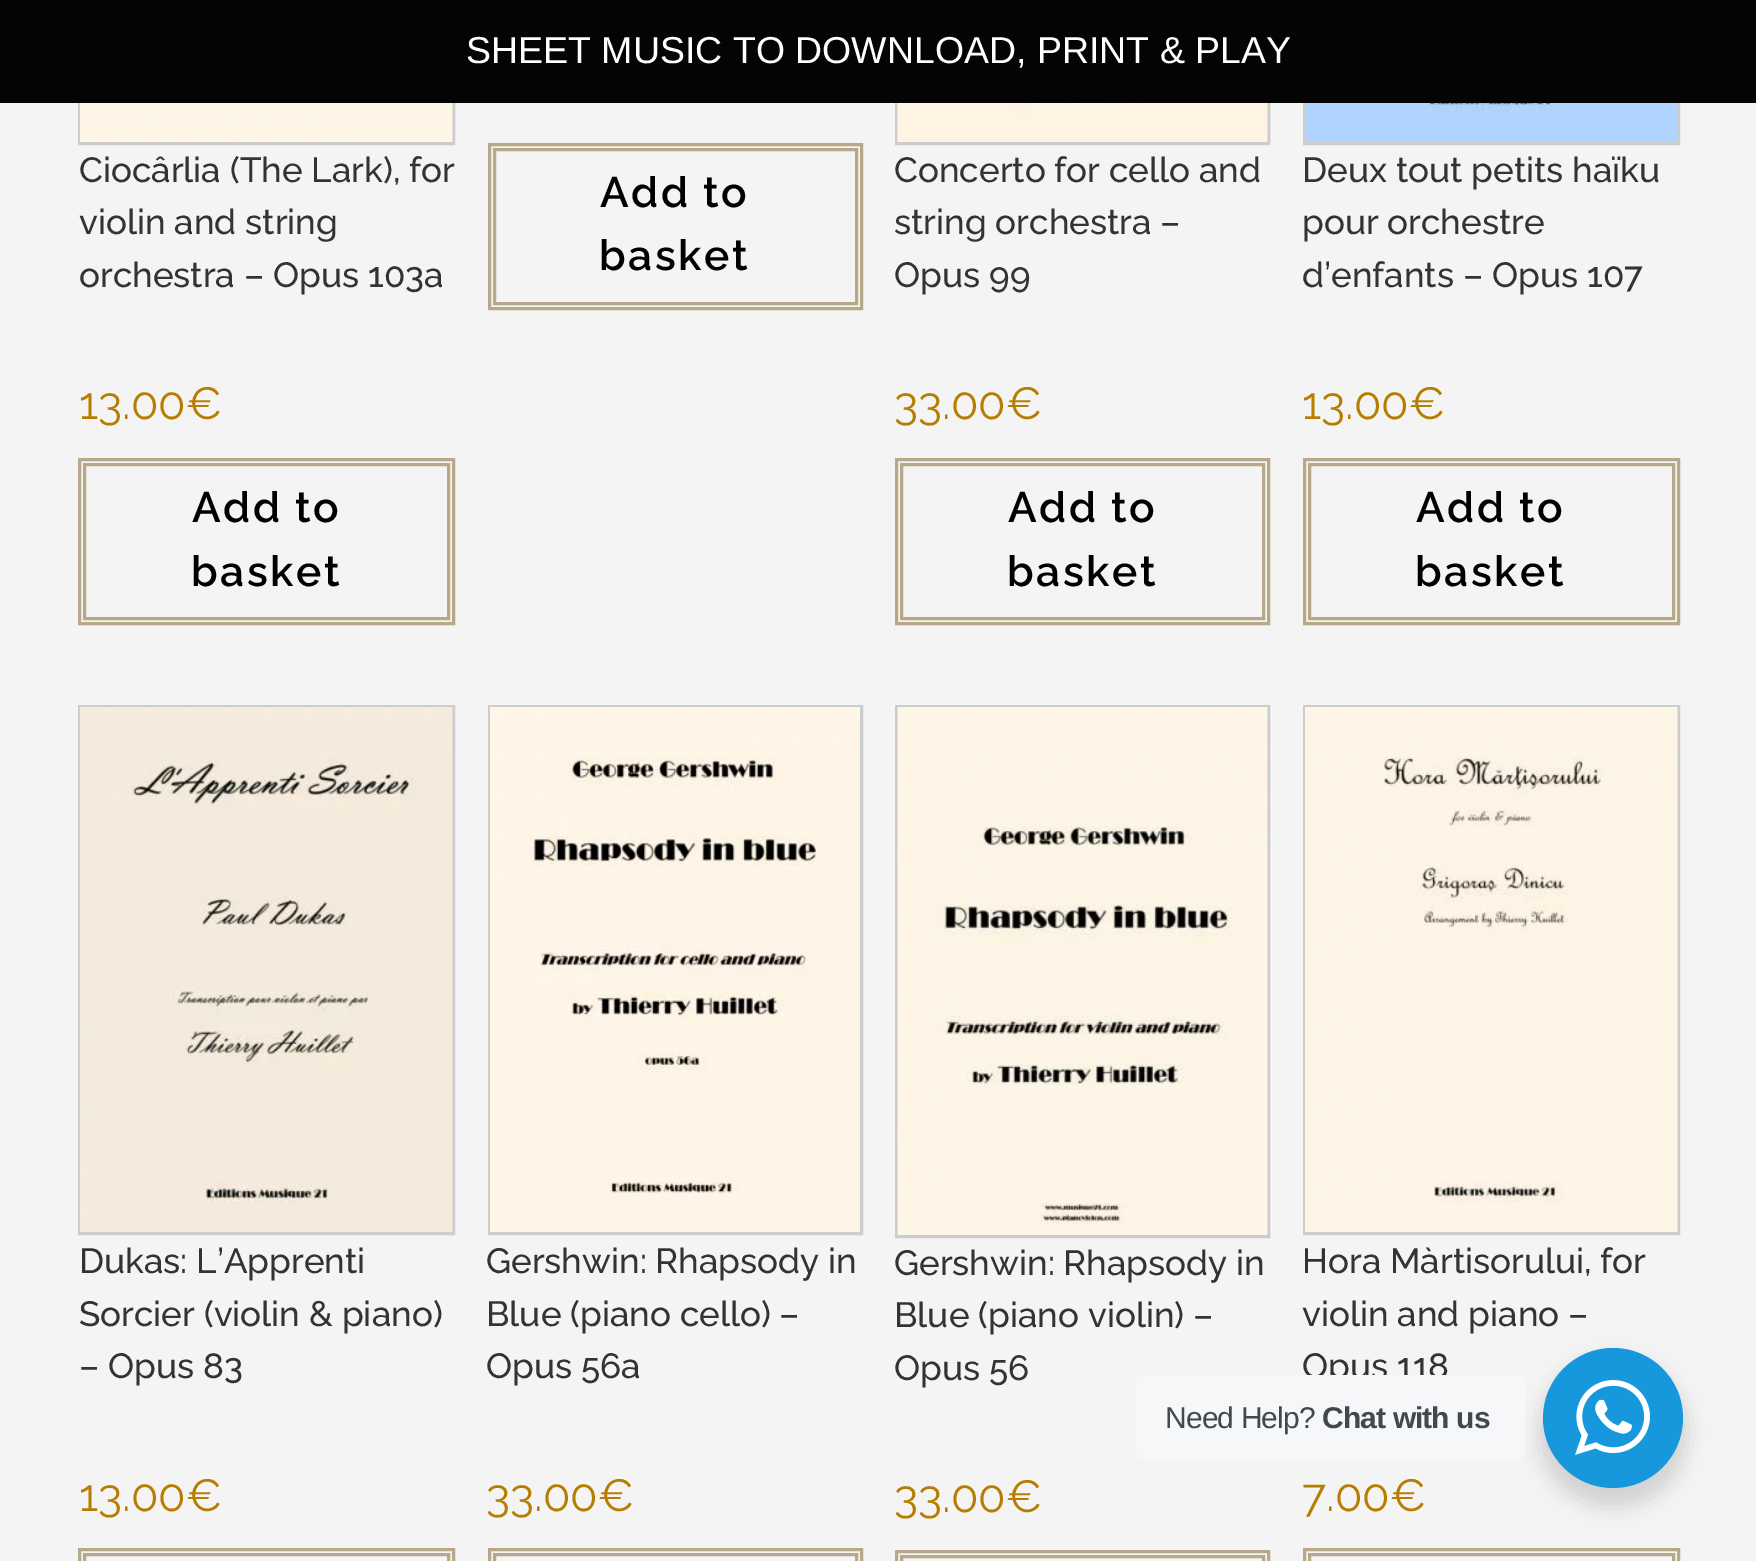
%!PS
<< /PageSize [1756 1561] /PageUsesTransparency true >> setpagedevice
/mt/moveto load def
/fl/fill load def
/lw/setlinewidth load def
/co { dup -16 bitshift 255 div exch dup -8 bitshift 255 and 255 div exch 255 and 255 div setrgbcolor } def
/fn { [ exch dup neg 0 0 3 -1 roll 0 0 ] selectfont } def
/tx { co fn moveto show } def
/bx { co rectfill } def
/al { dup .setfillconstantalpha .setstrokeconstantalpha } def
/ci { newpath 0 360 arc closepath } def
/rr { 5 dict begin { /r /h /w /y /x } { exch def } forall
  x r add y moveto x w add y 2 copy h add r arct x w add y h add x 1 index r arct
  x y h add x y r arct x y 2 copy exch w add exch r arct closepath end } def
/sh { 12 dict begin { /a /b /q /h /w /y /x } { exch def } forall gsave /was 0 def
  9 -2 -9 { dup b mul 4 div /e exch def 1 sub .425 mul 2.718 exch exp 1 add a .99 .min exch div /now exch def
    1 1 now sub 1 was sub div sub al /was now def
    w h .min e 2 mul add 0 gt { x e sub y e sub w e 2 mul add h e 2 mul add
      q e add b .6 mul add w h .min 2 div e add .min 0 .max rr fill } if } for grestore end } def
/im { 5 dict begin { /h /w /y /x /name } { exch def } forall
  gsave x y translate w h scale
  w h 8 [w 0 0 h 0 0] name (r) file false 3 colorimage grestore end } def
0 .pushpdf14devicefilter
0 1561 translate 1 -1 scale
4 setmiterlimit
0 0 1756 1561 16#F4F4F4 bx
16#CCCCCC co
3 lw
79.5 -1.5 374 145 rectstroke
896.5 -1.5 372 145 rectstroke
1304.5 -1.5 374 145 rectstroke
0 0 1756 103 16#040404 bx
(media/1.raw) 80 103 373 39 im
16#B7A888 co
79.5 459.5 374 164 rectstroke
84.5 464.5 364 154 rectstroke
489.5 144.5 372 164 rectstroke
494.5 149.5 362 154 rectstroke
(media/2.raw) 897 103 371 39 im
896.5 459.5 372 164 rectstroke
901.5 464.5 362 154 rectstroke
(media/3.raw) 1305 103 373 39 im
1304.5 459.5 374 164 rectstroke
1309.5 464.5 364 154 rectstroke
16#CCCCCC co
79.5 706.5 374 527 rectstroke
(media/4.raw) 80 707 373 525 im
16#B7A888 co
79.5 1549.5 374 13 rectstroke
84.5 1554.5 364 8 rectstroke
16#CCCCCC co
489.5 706.5 372 527 rectstroke
(media/5.raw) 490 707 370 525 im
16#B7A888 co
489.5 1549.5 372 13 rectstroke
494.5 1554.5 362 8 rectstroke
(media/7.raw) 898 1234 369 1 im
16#CCCCCC co
896.5 706.5 372 530 rectstroke
(media/6.raw) 897 707 371 528 im
16#B7A888 co
896.5 1551.5 372 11 rectstroke
901.5 1556.5 362 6 rectstroke
16#CCCCCC co
1304.5 706.5 374 527 rectstroke
(media/8.raw) 1305 707 373 525 im
16#B7A888 co
1304.5 1549.5 374 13 rectstroke
1309.5 1554.5 364 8 rectstroke
16#000000 co
1538 1358 150 150 75 10 .14 sh
16#1798DD co
1613 1418 70 ci fl
(media/9.raw) 1575 1380 75 75 im
(SHEET MUSIC TO DOWNLOAD, PRINT & PLAY) 466 63 /LiberationSans-Regular 37.5 16#FFFFFF tx
(Ciocârlia \(The Lark\), for) 79 182 /Raleway-Medium 35 16#333333 tx
(violin and string) 79 234 /Raleway-Medium 35 16#333333 tx
(orchestra – Opus 103a) 79 287 /Raleway-Medium 35 16#333333 tx
(13.00€) 79 419 /Raleway-Regular 45 16#B77D00 tx
/Raleway-SemiBold 42.5 fn
16#000000 co
192 522 mt 2.5 0 (Add to) ashow
191 586 mt 2.5 0 (basket) ashow
600 207 mt 2.5 0 (Add to) ashow
599 270 mt 2.5 0 (basket) ashow
(Concerto for cello and) 894 182 /Raleway-Medium 35 16#333333 tx
(string orchestra –) 894 234 /Raleway-Medium 35 16#333333 tx
(Opus 99) 894 287 /Raleway-Medium 35 16#333333 tx
(33.00€) 894 419 /Raleway-Regular 45 16#B77D00 tx
/Raleway-SemiBold 42.5 fn
16#000000 co
1008 522 mt 2.5 0 (Add to) ashow
1007 586 mt 2.5 0 (basket) ashow
(Deux tout petits haïku) 1302 182 /Raleway-Medium 35 16#333333 tx
(pour orchestre) 1302 234 /Raleway-Medium 35 16#333333 tx
(d’enfants – Opus 107) 1302 287 /Raleway-Medium 35 16#333333 tx
(13.00€) 1302 419 /Raleway-Regular 45 16#B77D00 tx
/Raleway-SemiBold 42.5 fn
16#000000 co
1416 522 mt 2.5 0 (Add to) ashow
1415 586 mt 2.5 0 (basket) ashow
(Dukas: L’Apprenti) 79 1273 /Raleway-Medium 35 16#333333 tx
(Sorcier \(violin & piano\)) 79 1326 /Raleway-Medium 35 16#333333 tx
(– Opus 83) 79 1378 /Raleway-Medium 35 16#333333 tx
(13.00€) 79 1511 /Raleway-Regular 45 16#B77D00 tx
(Gershwin: Rhapsody in) 486 1273 /Raleway-Medium 35 16#333333 tx
(Blue \(piano cello\) –) 486 1326 /Raleway-Medium 35 16#333333 tx
(Opus 56a) 486 1378 /Raleway-Medium 35 16#333333 tx
(33.00€) 486 1511 /Raleway-Regular 45 16#B77D00 tx
(Gershwin: Rhapsody in) 894 1275 /Raleway-Medium 35 16#333333 tx
(Blue \(piano violin\) –) 894 1327 /Raleway-Medium 35 16#333333 tx
(Opus 56) 894 1380 /Raleway-Medium 35 16#333333 tx
(33.00€) 894 1512 /Raleway-Regular 45 16#B77D00 tx
(Hora Màrtisorului, for) 1302 1273 /Raleway-Medium 35 16#333333 tx
(violin and piano –) 1302 1326 /Raleway-Medium 35 16#333333 tx
(Opus 118) 1302 1378 /Raleway-Medium 35 16#333333 tx
(7.00€) 1302 1511 /Raleway-Regular 45 16#B77D00 tx
16#F5F7F9 co
1135 1375 390 85 10 rr fl
/LiberationSans-Regular 30 fn
16#43474E co
1165 1428 mt -.9 0 (Need Help?) ashow
/LiberationSans-Bold 30 fn
1322 1428 mt -.9 0 (Chat with us) ashow
.poppdf14devicefilter showpage
